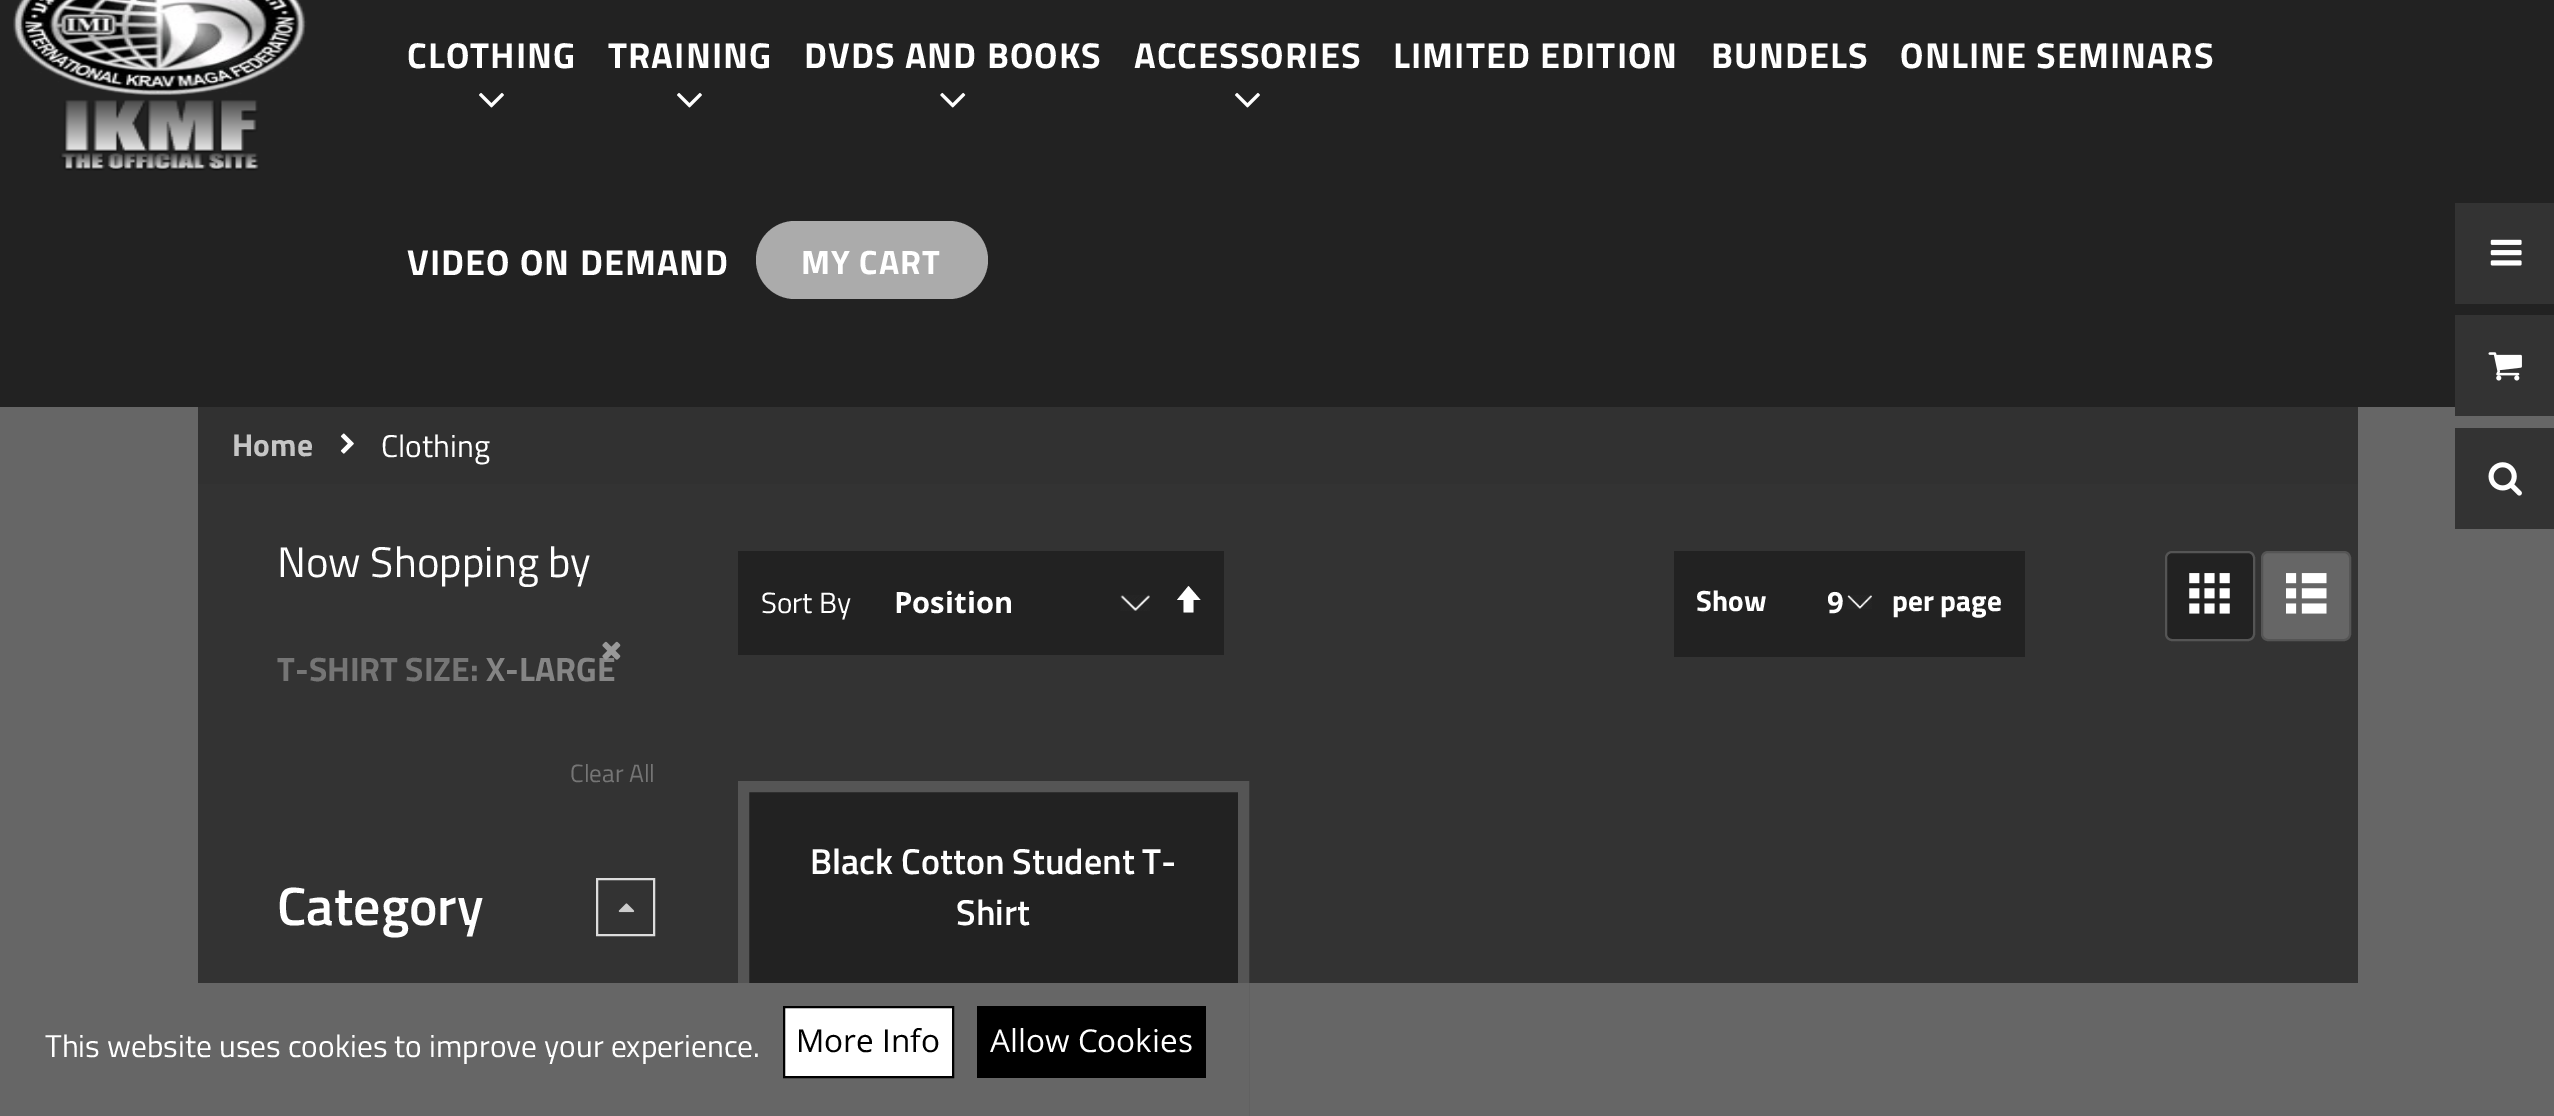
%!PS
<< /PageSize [2554 1116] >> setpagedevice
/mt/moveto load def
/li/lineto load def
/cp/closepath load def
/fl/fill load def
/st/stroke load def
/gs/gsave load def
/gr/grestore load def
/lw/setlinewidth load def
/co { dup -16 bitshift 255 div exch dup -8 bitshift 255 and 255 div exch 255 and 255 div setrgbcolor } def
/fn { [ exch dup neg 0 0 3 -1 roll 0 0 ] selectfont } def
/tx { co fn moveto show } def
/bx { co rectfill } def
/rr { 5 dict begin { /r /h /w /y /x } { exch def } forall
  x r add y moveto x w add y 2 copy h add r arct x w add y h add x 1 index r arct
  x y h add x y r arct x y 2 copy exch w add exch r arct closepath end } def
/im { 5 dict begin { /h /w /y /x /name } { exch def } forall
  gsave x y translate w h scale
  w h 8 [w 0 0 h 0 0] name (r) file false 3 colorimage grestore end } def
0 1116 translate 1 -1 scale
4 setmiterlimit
0 0 2554 1116 16#666666 bx
0 0 2554 407 16#222222 bx
(media/1.raw) 13 0 294 171 im
(media/2.raw) 479 92 25 16 im
(media/2.raw) 677 92 25 16 im
(media/3.raw) 940 92 26 16 im
(media/2.raw) 1235 92 25 16 im
16#ABABAB co
756 221 232 78 39 rr fl
2455 203 99 101 16#333333 bx
(media/4.raw) 2490 239 32 27 im
2455 315 99 101 16#333333 bx
(media/5.raw) 2488 352 34 29 im
2455 428 99 101 16#333333 bx
(media/6.raw) 2488 462 34 34 im
198 407 2160 77 16#313131 bx
(media/7.raw) 340 433 14 21 im
198 484 2160 499 16#333333 bx
16#DDDDDD co
2 lw
597 879 57 56 rectstroke
(media/9.raw) 618 903 17 10 im
738 551 486 104 16#222222 bx
(media/10.raw) 1120 595 30 16 im
16#FFFFFF co
1200.5 600 mt 1193.5 600 li 1193.5 612.5 li 1183.5 612.5 li 1183.5 600 li 1177 600 li 1188.5 586 li cp fl
1674 551 351 106 16#222222 bx
(media/11.raw) 1847 595 25 14 im
2166 552 88 88 6 rr gs fl gr
16#555555 co
st
(media/12.raw) 2189 573 41 41 im
16#666666 co
2262 552 88 88 6 rr gs fl gr
16#555555 co
st
(media/13.raw) 2286 573 41 41 im
749 792 489 191 16#222222 bx
16#555555 co
11 lw
743.5 786.5 500 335 rectstroke
738 983 511 133 16#666666 bx
16#FFFFFF co
784 1007 mt 953 1007 li 953 1077 li 784 1077 li cp gs fl gr
16#000000 co
2 lw
st
977 1006 229 72 16#000000 bx
/TitilliumWeb-Bold 36 fn
16#FFFFFF co
407 68 mt 1.1 0 (CLOTHING) ashow
608 68 mt 1.1 0 (TRAINING) ashow
804 68 mt 1.1 0 (DVDS AND BOOKS) ashow
1134 68 mt 1.1 0 (ACCESSORIES) ashow
1393 68 mt 1.1 0 (LIMITED EDITION) ashow
1711 68 mt 1.1 0 (BUNDELS) ashow
1900 68 mt 1.1 0 (ONLINE SEMINARS) ashow
407 275 mt 1.1 0 (VIDEO ON DEMAND) ashow
/TitilliumWeb-Bold 33.75 fn
801 274 mt 1.1 0 (MY CART) ashow
(Home) 232 456 /TitilliumWeb-Bold 31.5 16#C5C5C5 tx
(Clothing) 381 457 /TitilliumWeb-Regular 31.5 16#FFFFFF tx
(Now Shopping by) 277 577 /TitilliumWeb-Regular 42.75 16#FFFFFF tx
(T-SHIRT SIZE:) 277 681 /TitilliumWeb-Bold 33.75 16#757575 tx
(X-LARGE) 486 681 /TitilliumWeb-Bold 33.75 16#858585 tx
(media/8.raw) 602 641 19 19 im
(Clear All) 570 782 /TitilliumWeb-Regular 25 16#757575 tx
(Category) 277 925 /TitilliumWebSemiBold-SemiBold 54 16#FFFFFF tx
(Sort By) 761 613 /TitilliumWeb-Regular 29.25 16#FFFFFF tx
(Position) 894 613 /OpenSans-Bold 29.25 16#FFFFFF tx
(Show) 1696 611 /TitilliumWeb-Bold 29.25 16#FFFFFF tx
(9) 1827 613 /OpenSans-Bold 29.25 16#FFFFFF tx
(per page) 1892 611 /TitilliumWeb-Bold 29.25 16#FFFFFF tx
(Black Cotton Student T-) 810 874 /TitilliumWebSemiBold-SemiBold 36 16#FFFFFF tx
(Shirt) 956 925 /TitilliumWebSemiBold-SemiBold 36 16#FFFFFF tx
(This website uses cookies to improve your experience.) 45 1057 /TitilliumWeb-Regular 31.5 16#FFFFFF tx
(More Info) 796 1052 /OpenSans-Regular 31.5 16#000000 tx
(Allow Cookies) 990 1052 /OpenSans-Regular 31.5 16#FFFFFF tx
showpage
